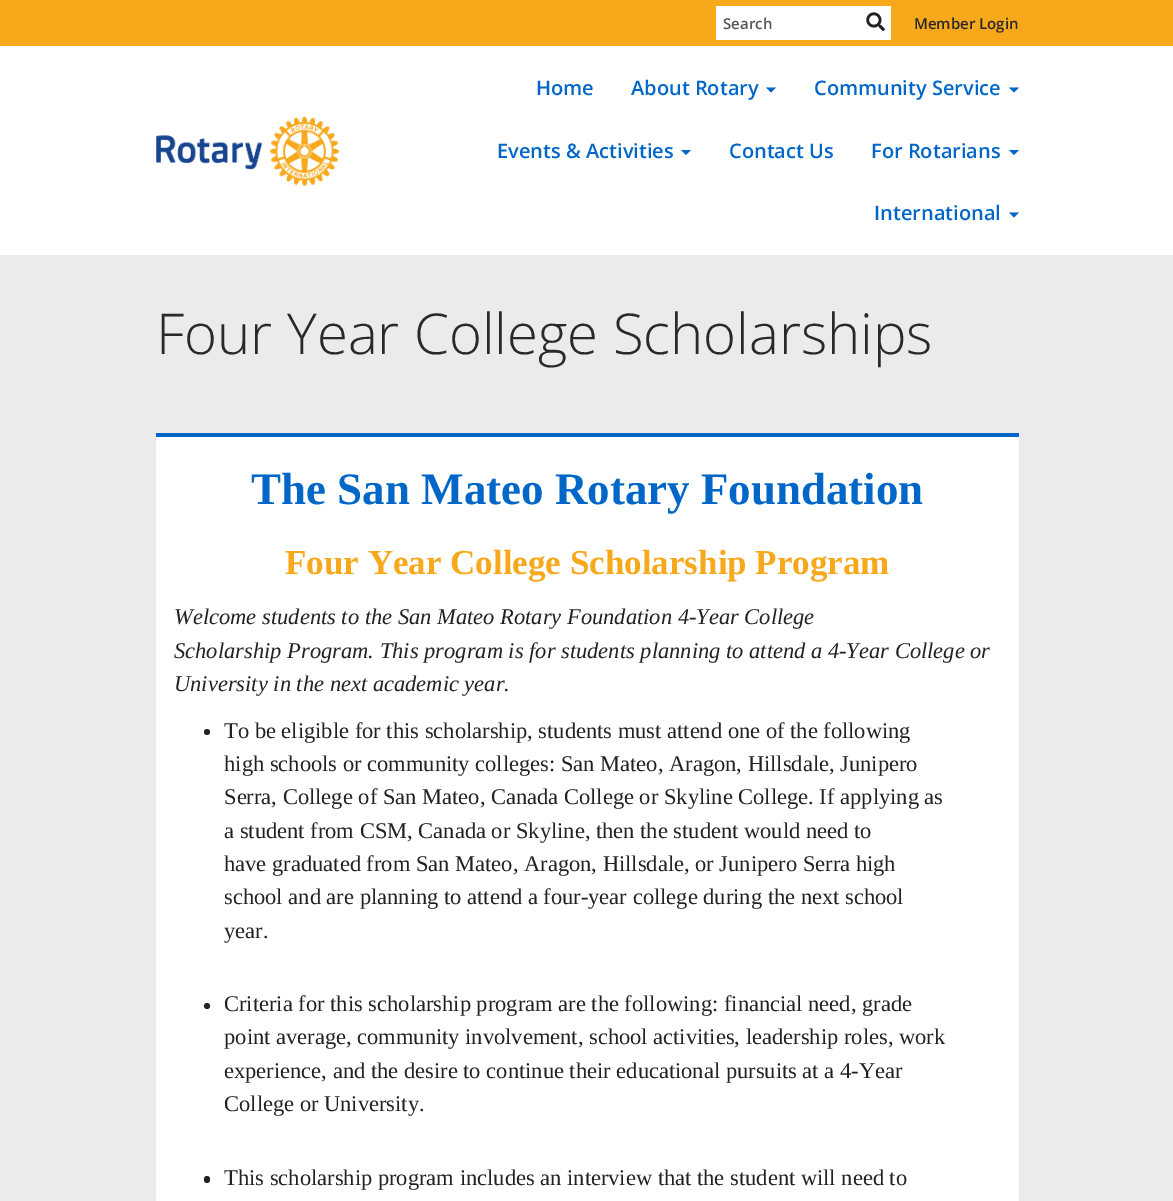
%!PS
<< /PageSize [1173 1201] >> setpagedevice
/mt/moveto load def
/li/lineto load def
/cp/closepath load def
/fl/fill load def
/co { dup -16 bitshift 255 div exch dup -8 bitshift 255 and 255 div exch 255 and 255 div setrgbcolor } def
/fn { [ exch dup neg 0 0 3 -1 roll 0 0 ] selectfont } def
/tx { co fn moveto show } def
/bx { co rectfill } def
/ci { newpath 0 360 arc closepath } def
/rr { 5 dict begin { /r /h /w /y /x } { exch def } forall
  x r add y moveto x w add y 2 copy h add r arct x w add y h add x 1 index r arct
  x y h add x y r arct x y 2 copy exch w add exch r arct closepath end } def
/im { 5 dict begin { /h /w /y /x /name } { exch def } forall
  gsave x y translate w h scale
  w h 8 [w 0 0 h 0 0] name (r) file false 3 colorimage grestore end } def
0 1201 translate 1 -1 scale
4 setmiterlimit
0 0 1173 1201 16#EBEBEB bx
0 0 1173 46 16#F7A81B bx
716 6 175 34 16#FFFFFF bx
(media/1.raw) 866 12 19 19 im
0 46 1173 209 16#FFFFFF bx
(media/2.raw) 156 116 183 70 im
16#0067C8 co
766 87.5 mt 776 87.5 li 771 92.5 li cp fl
1009 87.5 mt 1019 87.5 li 1014 92.5 li cp fl
681 150 mt 691 150 li 686 155 li cp fl
1009 150 mt 1019 150 li 1014 155 li cp fl
1009 212.5 mt 1019 212.5 li 1014 217.5 li cp fl
156 437 863 764 16#FFFFFF bx
156 433 863 4 16#0067C8 bx
16#222222 co
207 732 3 ci fl
207 1006 3 ci fl
204 1176 6 7 3 rr fl
(Search) 723 29 /OpenSans-SemiBold 15 16#555555 tx
(Member Login) 914 29 /OpenSans-SemiBold 15 16#292929 tx
(Home) 536 95 /OpenSans-SemiBold 20 16#0067C8 tx
(About Rotary) 631 95 /OpenSans-SemiBold 20 16#0067C8 tx
(Community Service) 814 95 /OpenSans-SemiBold 20 16#0067C8 tx
(Events & Activities) 497 158 /OpenSans-SemiBold 20 16#0067C8 tx
(Contact Us) 729 158 /OpenSans-SemiBold 20 16#0067C8 tx
(For Rotarians) 871 158 /OpenSans-SemiBold 20 16#0067C8 tx
(International) 874 220 /OpenSans-SemiBold 20 16#0067C8 tx
(Four Year College Scholarships) 156 354 /OpenSans-Light 56.25 16#292929 tx
(The San Mateo Rotary Foundation) 251 504 /LiberationSerif-Bold 45 16#0067C8 tx
(Four Year College Scholarship Program) 285 574 /LiberationSerif-Bold 35 16#F7A81B tx
(Welcome students to the San Mateo Rotary Foundation 4-Year College) 174 624 /LiberationSerif-Italic 22.5 16#222222 tx
(Scholarship Program. This program is for students planning to attend a 4-Year College or) 174 658 /LiberationSerif-Italic 22.5 16#222222 tx
(University in the next academic year.) 174 691 /LiberationSerif-Italic 22.5 16#222222 tx
(To be eligible for this scholarship, students must attend one of the following) 224 738 /LiberationSerif-Regular 22.5 16#222222 tx
(high schools or community colleges: San Mateo, Aragon, Hillsdale, Junipero) 224 771 /LiberationSerif-Regular 22.5 16#222222 tx
(Serra, College of San Mateo, Canada College or Skyline College. If applying as) 224 804 /LiberationSerif-Regular 22.5 16#222222 tx
(a student from CSM, Canada or Skyline, then the student would need to) 224 838 /LiberationSerif-Regular 22.5 16#222222 tx
(have graduated from San Mateo, Aragon, Hillsdale, or Junipero Serra high) 224 871 /LiberationSerif-Regular 22.5 16#222222 tx
(school and are planning to attend a four-year college during the next school) 224 904 /LiberationSerif-Regular 22.5 16#222222 tx
(year.) 224 938 /LiberationSerif-Regular 22.5 16#222222 tx
(Criteria for this scholarship program are the following: financial need, grade) 224 1011 /LiberationSerif-Regular 22.5 16#222222 tx
(point average, community involvement, school activities, leadership roles, work) 224 1044 /LiberationSerif-Regular 22.5 16#222222 tx
(experience, and the desire to continue their educational pursuits at a 4-Year) 224 1078 /LiberationSerif-Regular 22.5 16#222222 tx
(College or University.) 224 1111 /LiberationSerif-Regular 22.5 16#222222 tx
(This scholarship program includes an interview that the student will need to) 224 1185 /LiberationSerif-Regular 22.5 16#222222 tx
showpage
